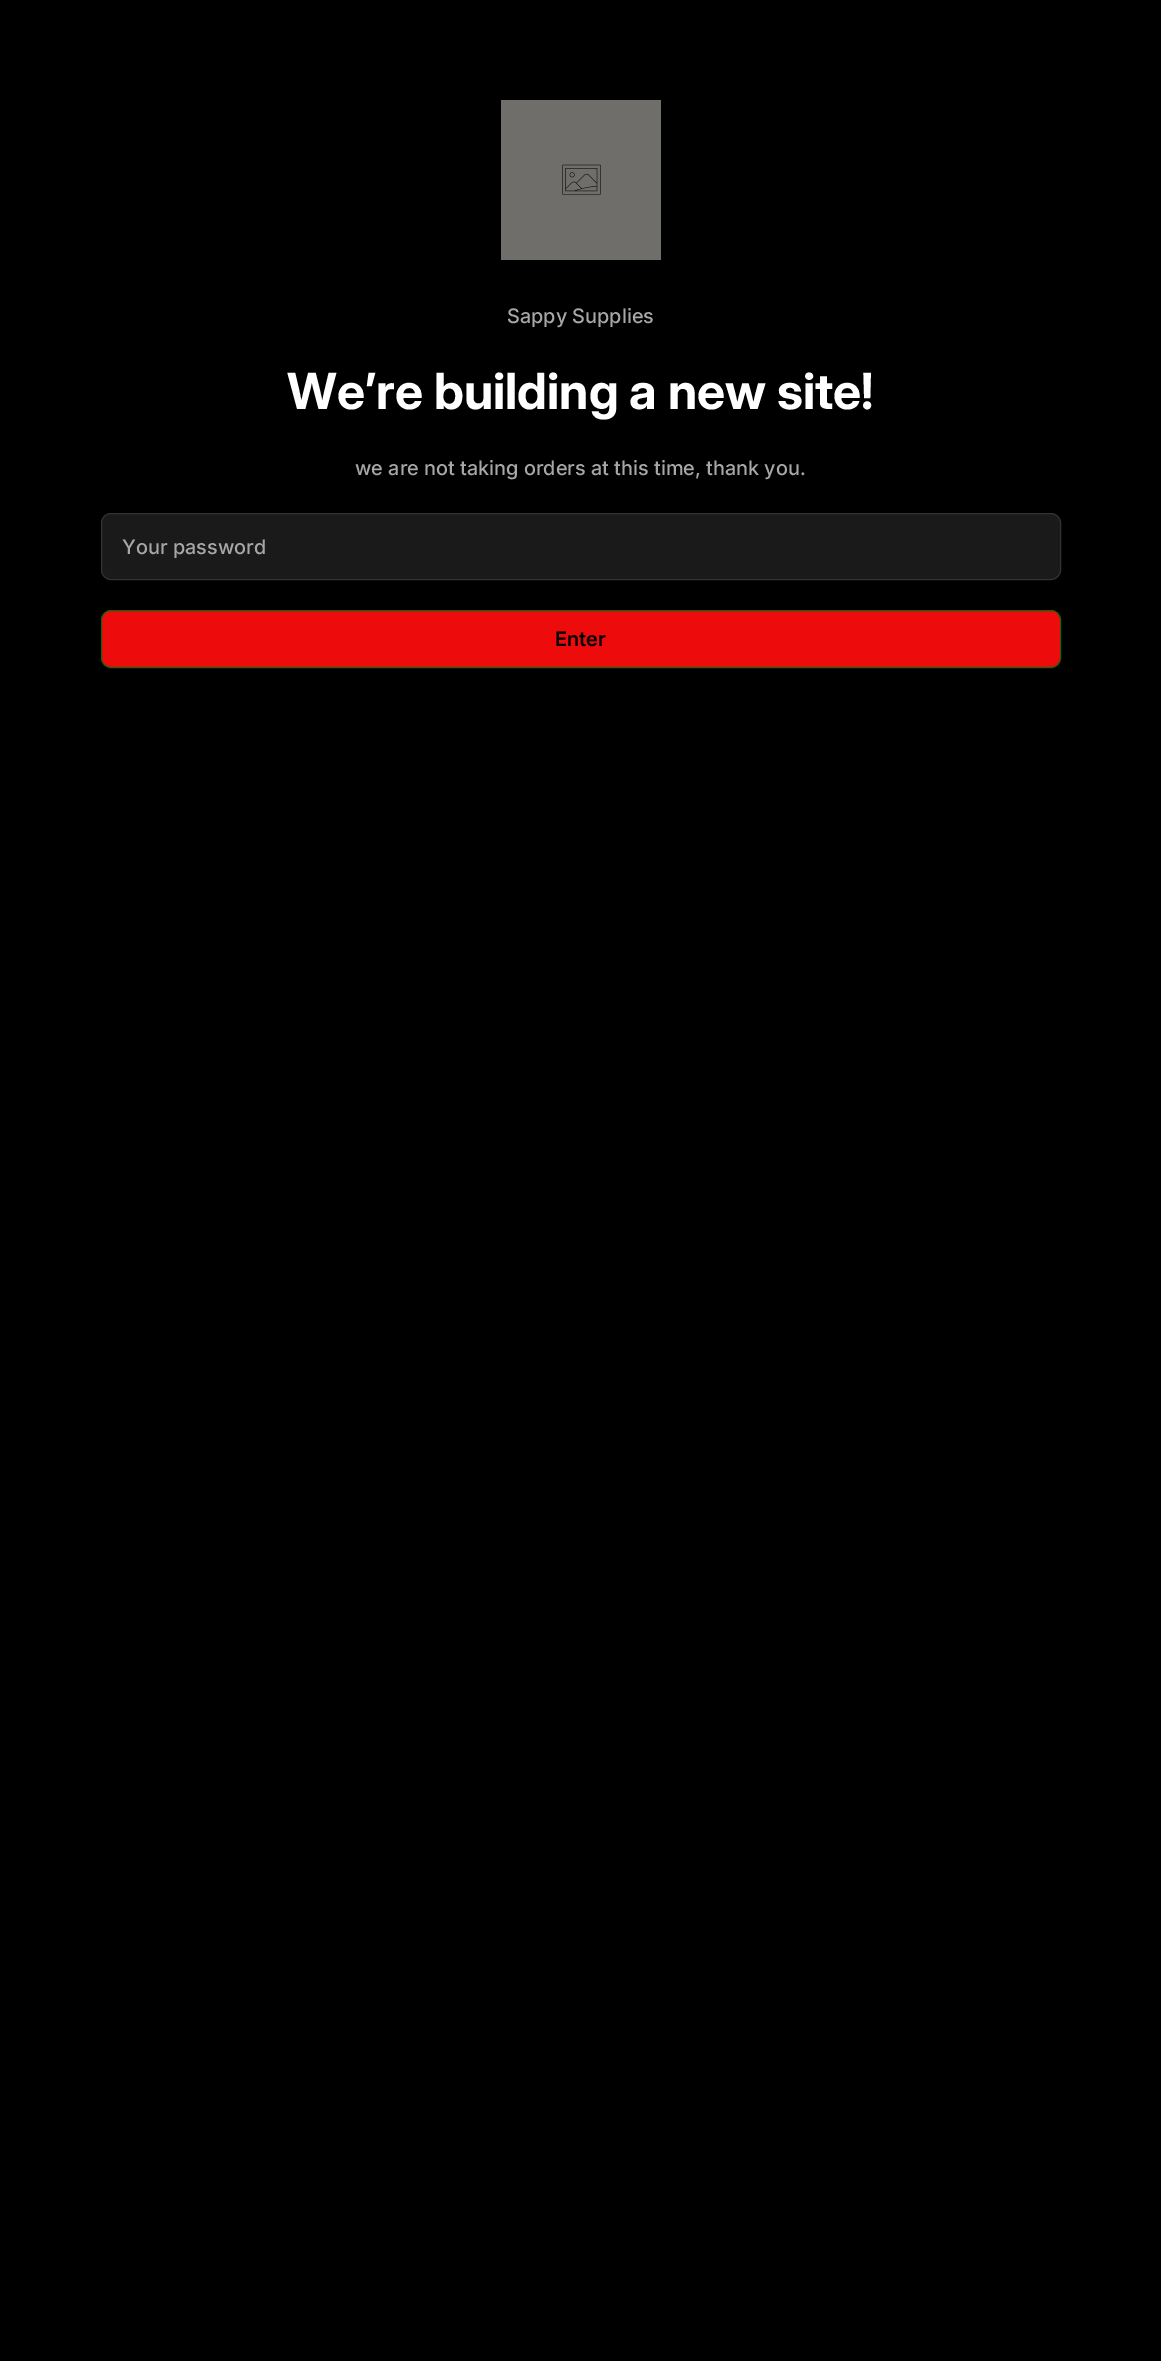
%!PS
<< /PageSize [1161 2361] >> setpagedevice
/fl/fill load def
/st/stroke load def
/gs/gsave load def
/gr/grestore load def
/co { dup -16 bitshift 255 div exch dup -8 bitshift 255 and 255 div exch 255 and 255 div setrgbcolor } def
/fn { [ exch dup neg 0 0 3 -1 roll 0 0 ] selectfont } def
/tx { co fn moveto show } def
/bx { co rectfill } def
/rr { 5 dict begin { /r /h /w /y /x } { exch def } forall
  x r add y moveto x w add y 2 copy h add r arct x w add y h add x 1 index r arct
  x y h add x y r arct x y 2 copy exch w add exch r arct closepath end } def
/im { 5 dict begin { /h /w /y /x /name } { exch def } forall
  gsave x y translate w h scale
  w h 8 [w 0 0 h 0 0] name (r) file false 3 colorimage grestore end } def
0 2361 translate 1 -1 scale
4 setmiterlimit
0 0 1161 2361 16#000000 bx
501 100 160 160 16#6F6E6A bx
(media/1.raw) 562 164 39 31 im
16#1A1A1A co
101.5 513.5 959 66 9.5 rr gs fl gr
16#333333 co
st
16#ED0B0C co
101.5 610.5 959 57 9.5 rr gs fl gr
16#1B6109 co
st
(Sappy Supplies) 507 323 /Inter-Medium 20 16#A7A7A7 tx
(We’re building a new site!) 287 409 /Inter-Bold 50 16#FFFFFF tx
(we are not taking orders at this time, thank you.) 355 475 /Inter-Medium 20 16#A7A7A7 tx
(Your password) 122 554 /Inter-Medium 20 16#A7A7A7 tx
(Enter) 555 646 /Inter-SemiBold 20 16#000000 tx
showpage
